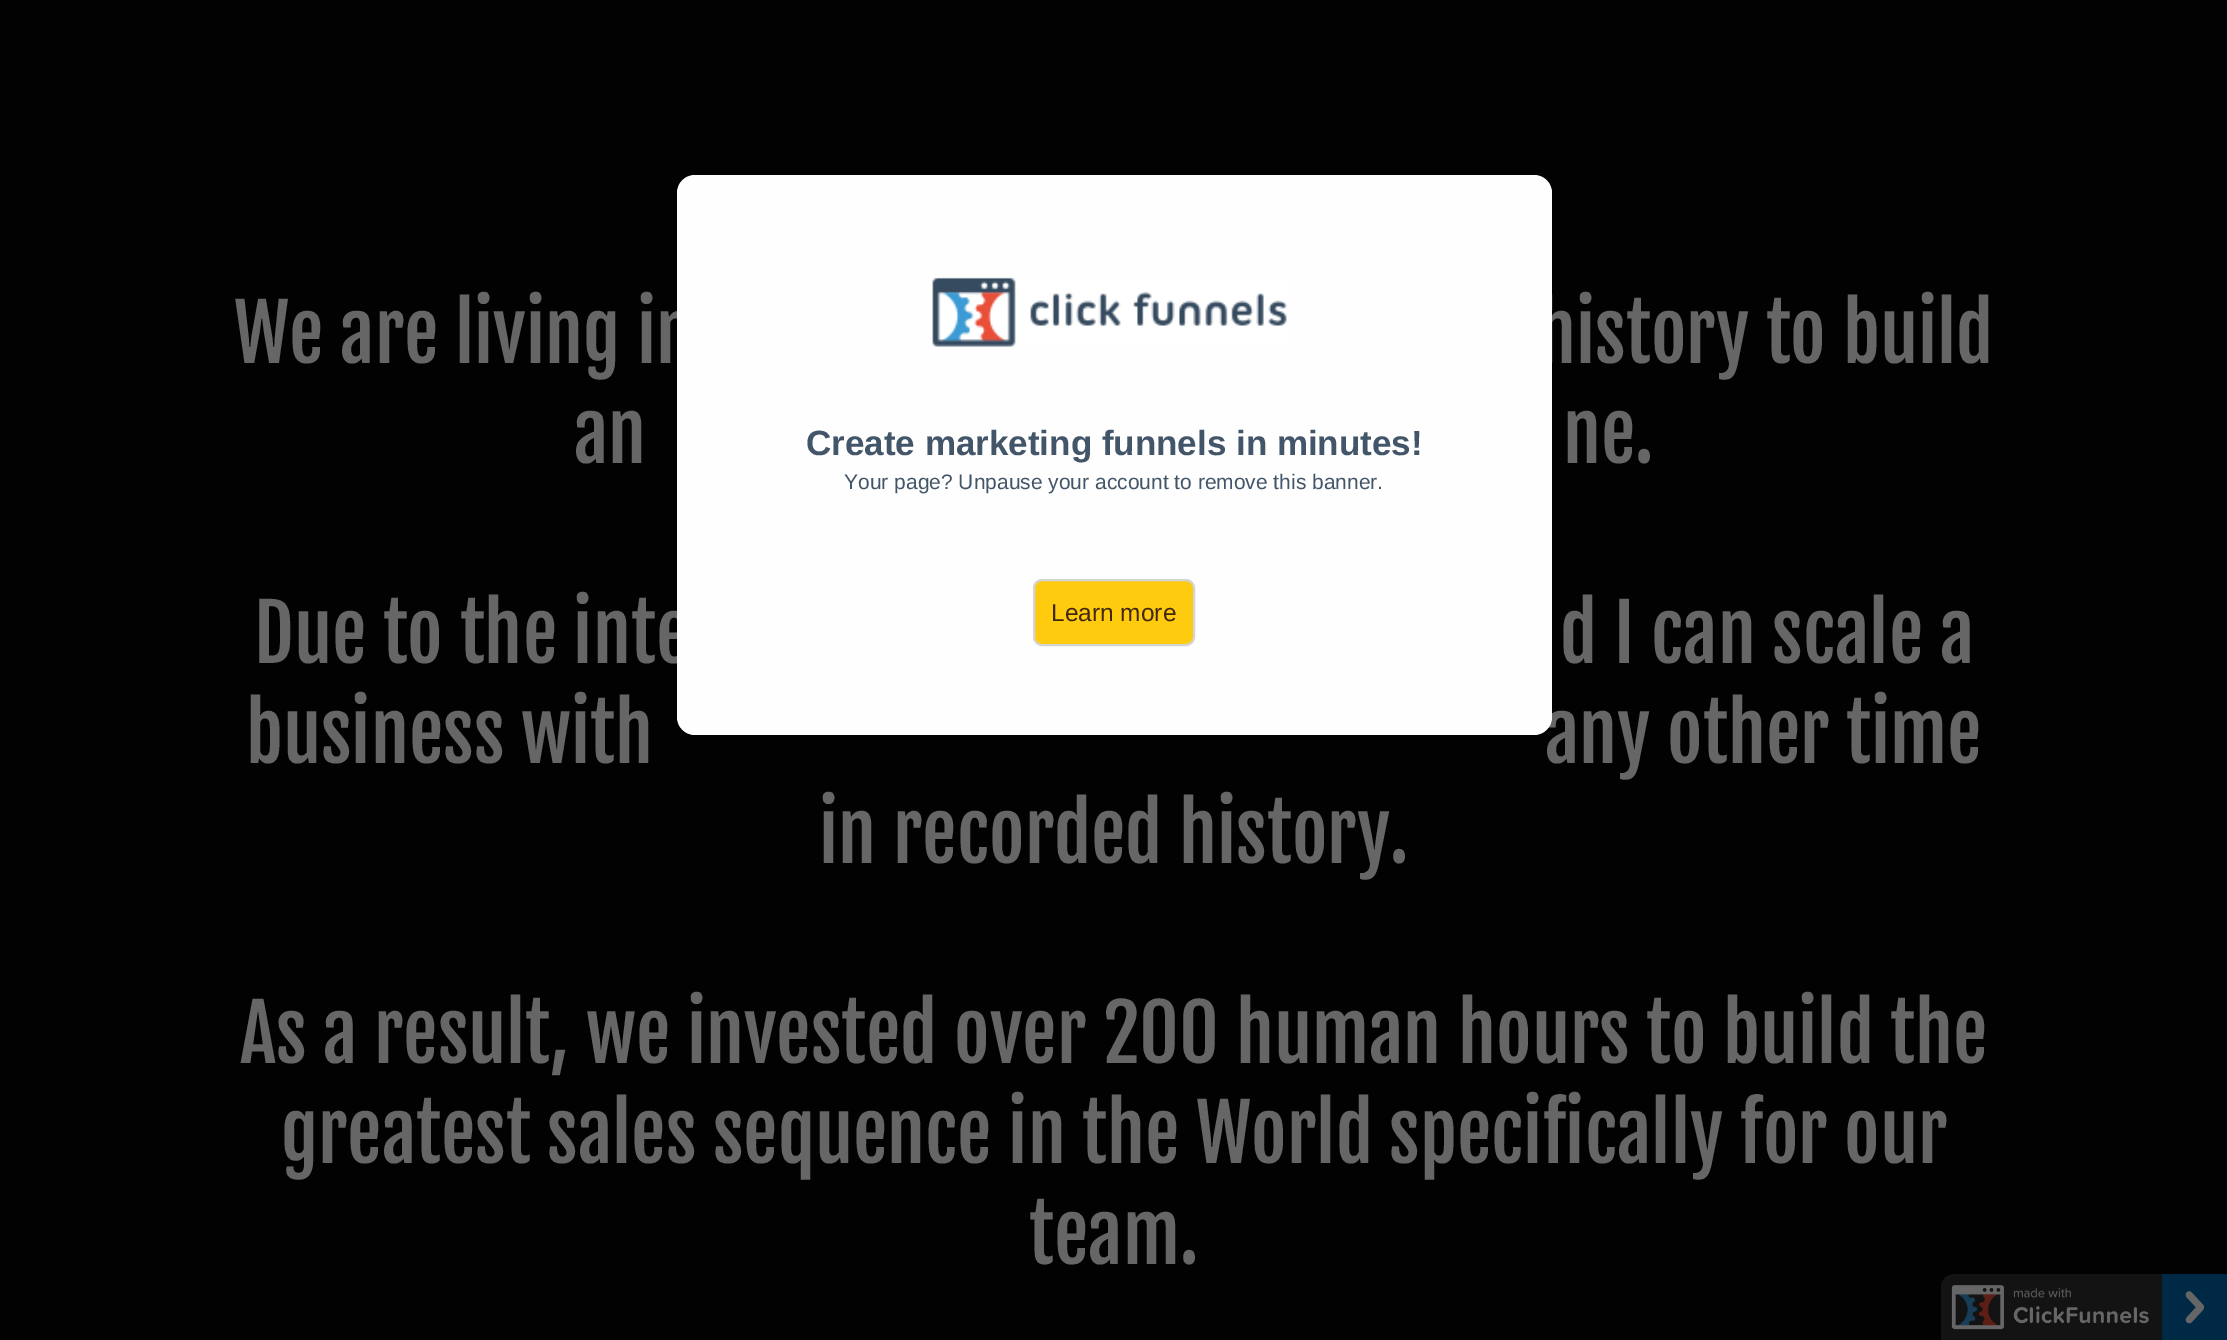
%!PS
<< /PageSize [2227 1340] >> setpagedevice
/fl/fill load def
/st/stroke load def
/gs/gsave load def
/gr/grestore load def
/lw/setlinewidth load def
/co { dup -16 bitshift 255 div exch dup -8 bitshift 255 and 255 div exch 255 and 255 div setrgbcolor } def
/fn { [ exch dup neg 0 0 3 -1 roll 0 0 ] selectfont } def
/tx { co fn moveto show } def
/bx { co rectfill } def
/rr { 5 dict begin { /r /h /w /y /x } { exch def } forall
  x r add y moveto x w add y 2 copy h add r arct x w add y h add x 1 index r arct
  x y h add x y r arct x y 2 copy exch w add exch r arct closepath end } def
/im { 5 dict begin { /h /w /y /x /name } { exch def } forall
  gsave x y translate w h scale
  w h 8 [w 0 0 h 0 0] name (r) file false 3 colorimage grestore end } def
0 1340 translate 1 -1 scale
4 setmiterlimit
0 0 2227 1340 16#020202 bx
(media/2.raw) 1941 1274 286 66 im
(We are living in) 234 363 /FjallaOne-Regular 77 16#666666 tx
(history to build) 1538 363 /FjallaOne-Regular 77 16#666666 tx
(an) 574 463 /FjallaOne-Regular 77 16#666666 tx
(ne.) 1563 463 /FjallaOne-Regular 77 16#666666 tx
(Due to the inte) 254 663 /FjallaOne-Regular 77 16#666666 tx
(d I can scale a) 1560 663 /FjallaOne-Regular 77 16#666666 tx
(business with) 246 763 /FjallaOne-Regular 77 16#666666 tx
(any other time) 1545 763 /FjallaOne-Regular 77 16#666666 tx
(in recorded history.) 819 863 /FjallaOne-Regular 77 16#666666 tx
(As a result, we invested over 200 human hours to build the) 240 1063 /FjallaOne-Regular 77 16#666666 tx
(greatest sales sequence in the World specifically for our) 281 1163 /FjallaOne-Regular 77 16#666666 tx
(team.) 1029 1264 /FjallaOne-Regular 77 16#666666 tx
16#FEFEFE co
677 175 875 560 18 rr fl
(media/1.raw) 932 277 355 70 im
(Create marketing funnels in minutes!) 806 455 /LiberationSans-Bold 35 16#435569 tx
(Your page? Unpause your account to remove this banner.) 844 489 /LiberationSans-Regular 21 16#435569 tx
16#FFCB0E co
1034 580 160 65 8 rr gs fl gr
16#D4D4D4 co
2 lw
st
(Learn more) 1051 621 /LiberationSans-Regular 24.5 16#432811 tx
showpage
